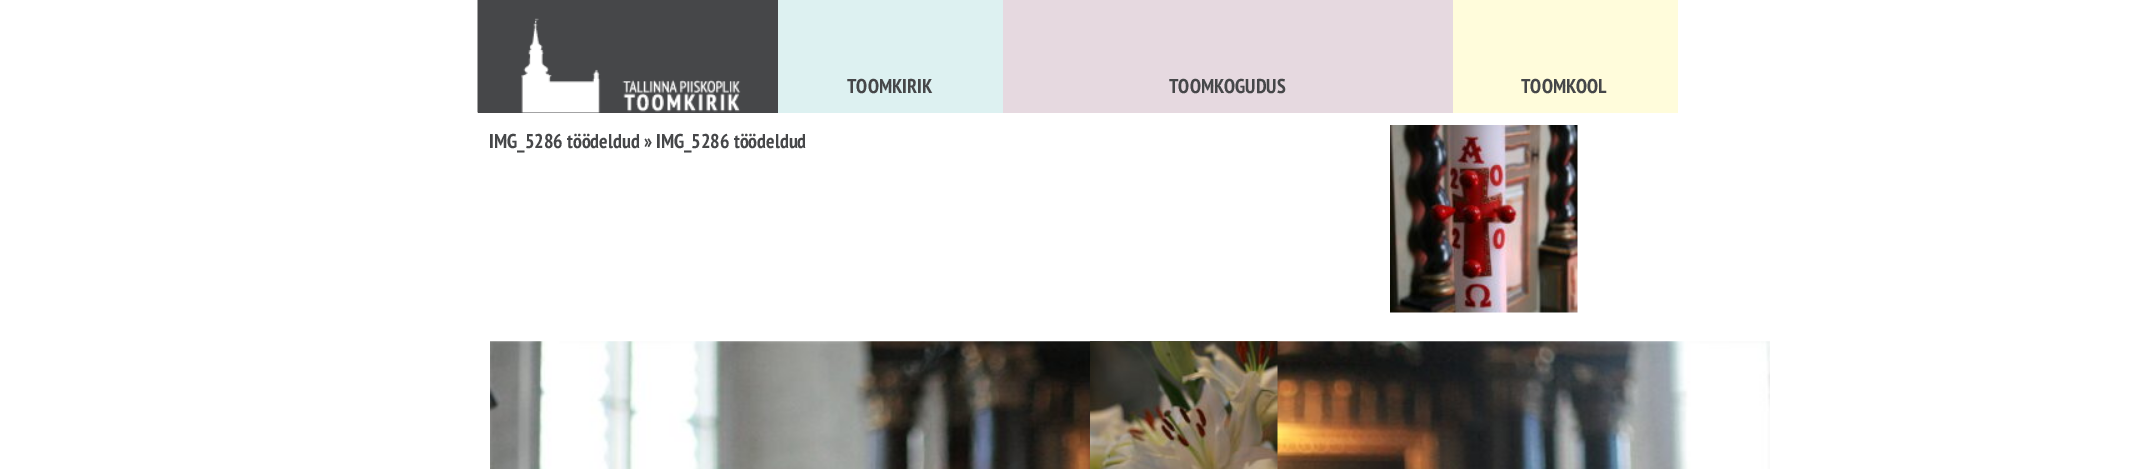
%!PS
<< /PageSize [2153 469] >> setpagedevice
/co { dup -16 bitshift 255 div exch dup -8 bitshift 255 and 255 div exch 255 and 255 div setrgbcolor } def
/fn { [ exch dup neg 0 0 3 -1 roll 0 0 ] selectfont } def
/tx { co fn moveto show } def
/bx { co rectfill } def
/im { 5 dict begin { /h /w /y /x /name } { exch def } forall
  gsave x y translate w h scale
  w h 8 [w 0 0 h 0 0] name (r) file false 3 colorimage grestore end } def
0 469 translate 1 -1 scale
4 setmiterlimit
0 0 2153 469 16#FFFFFF bx
478 0 300 113 16#464749 bx
(media/1.raw) 477 0 264 113 im
778 0 225 113 16#DDF1F1 bx
1003 0 450 113 16#E6D9E0 bx
1453 0 225 113 16#FFFCDB bx
(media/2.raw) 1390 125 188 188 im
(media/3.raw) 490 341 1280 128 im
(media/4.raw) 1090 341 188 128 im
(TOOMKIRIK) 847 93 /PTSansNarrow-Bold 20 16#464749 tx
(TOOMKOGUDUS) 1169 93 /PTSansNarrow-Bold 20 16#464749 tx
(TOOMKOOL) 1521 93 /PTSansNarrow-Bold 20 16#464749 tx
(IMG_5286 töödeldud » IMG_5286 töödeldud) 489 148 /PTSansNarrow-Bold 20 16#464749 tx
showpage
